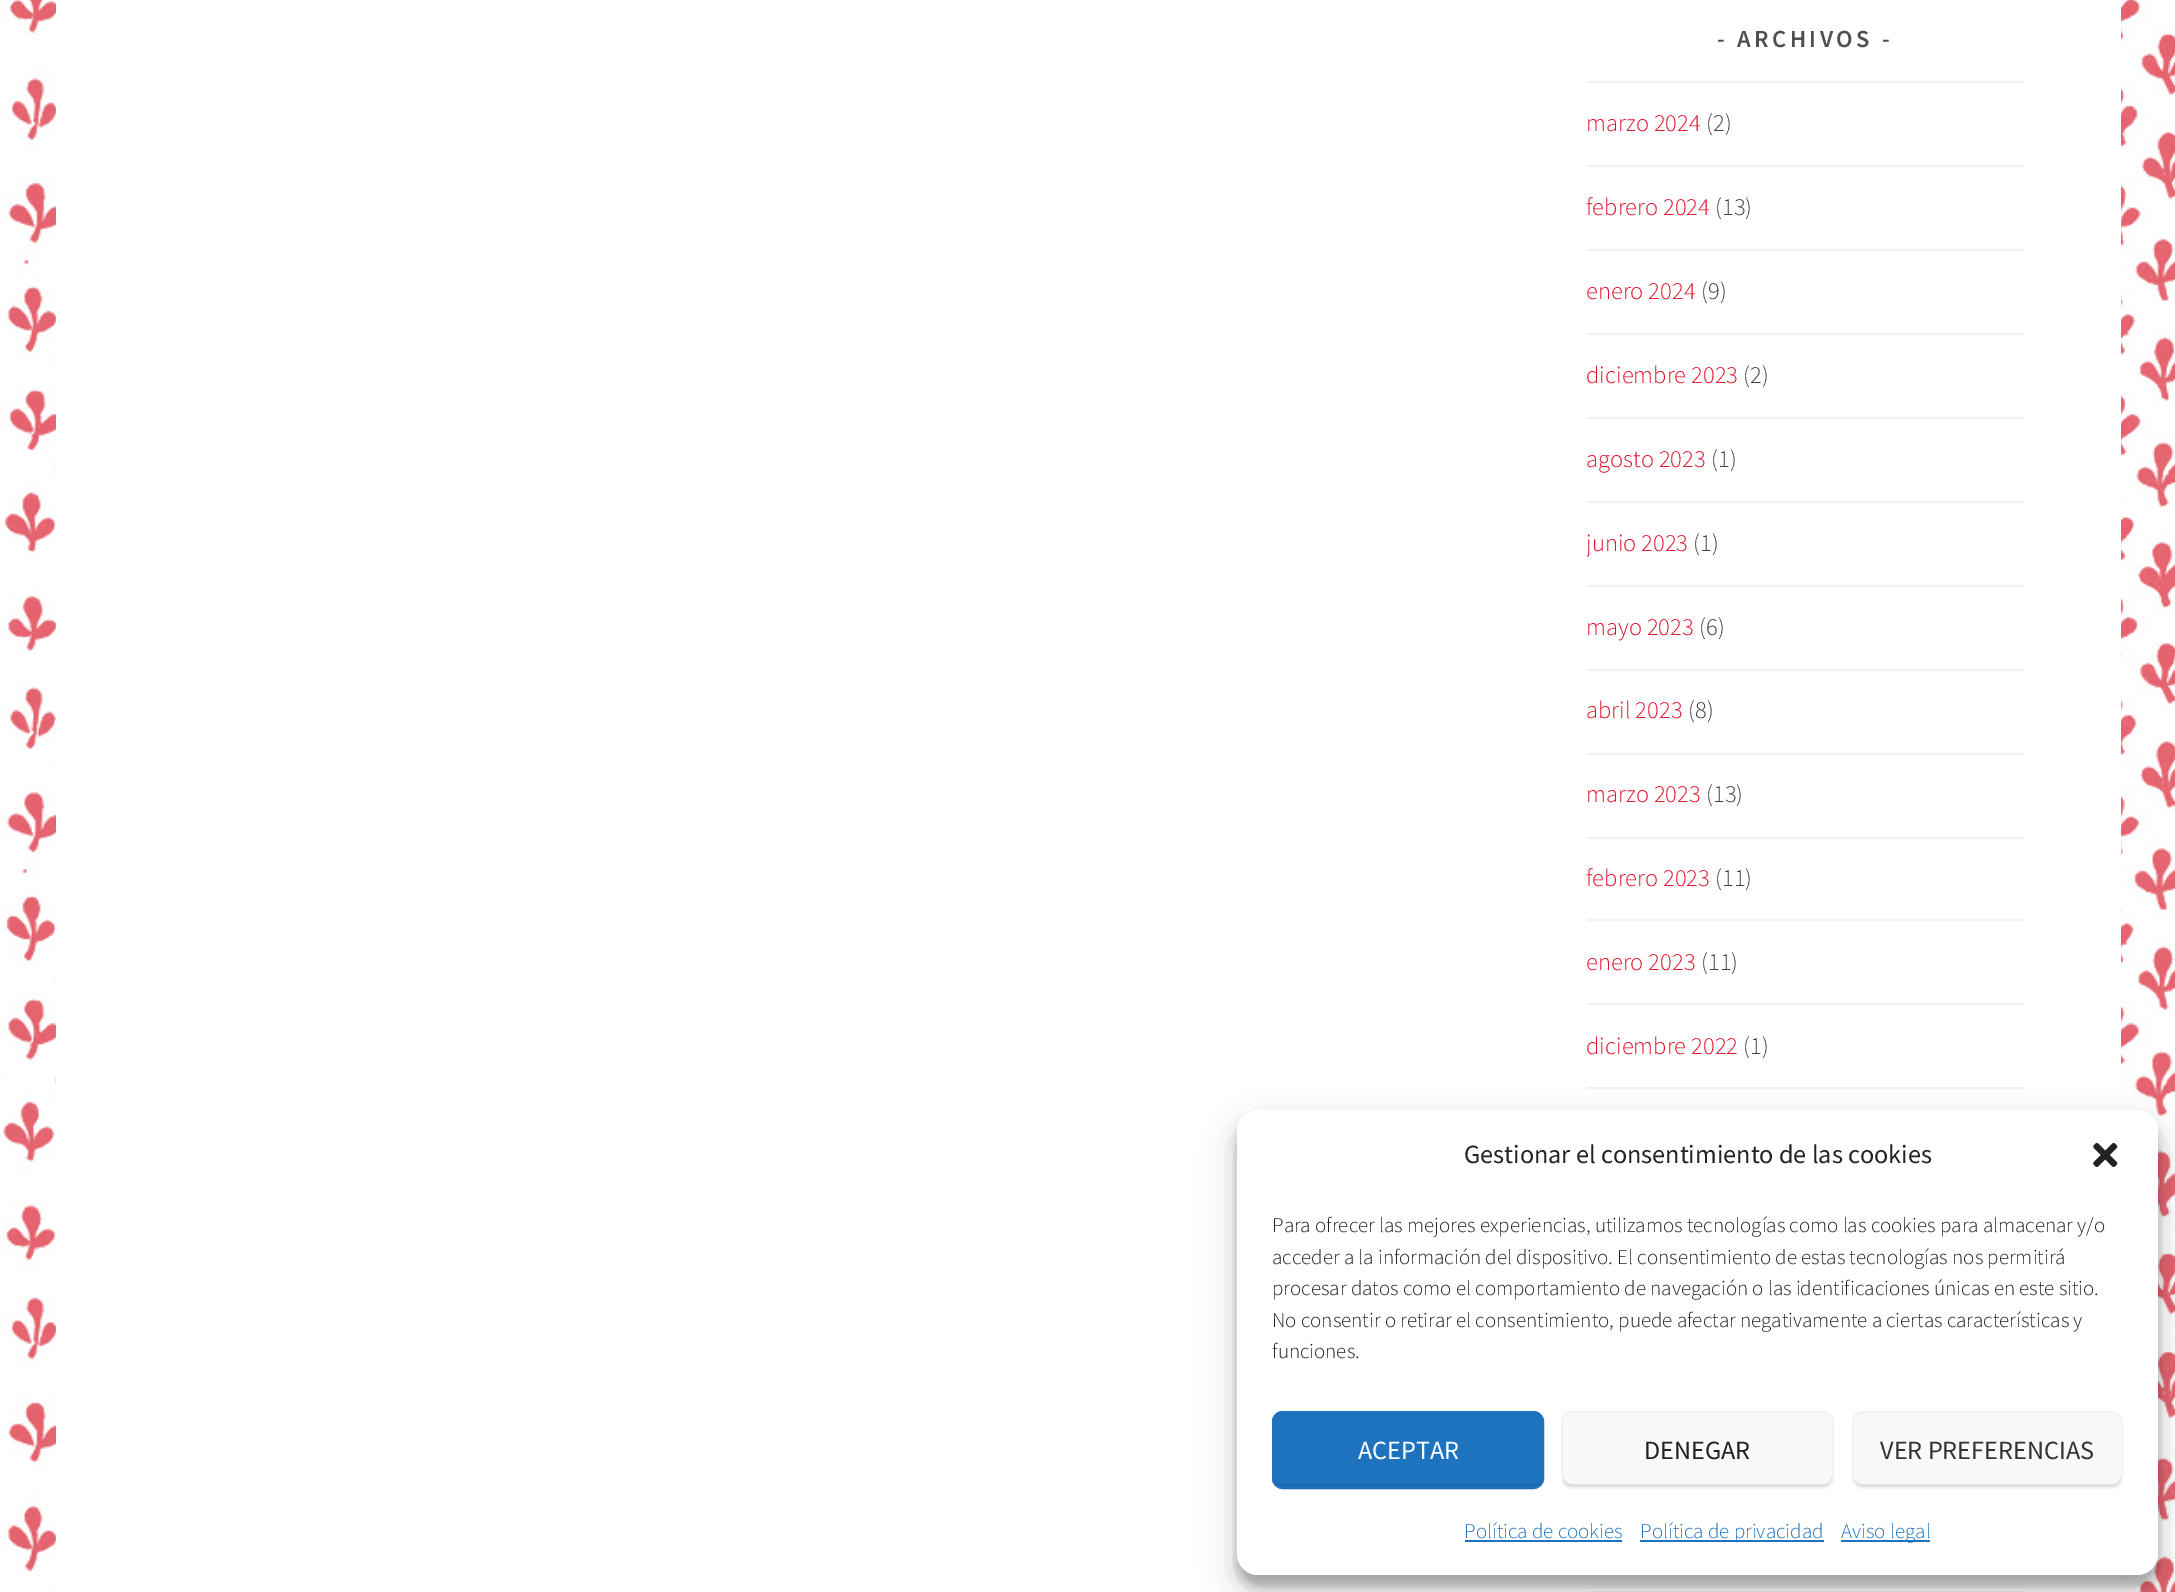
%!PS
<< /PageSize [2175 1592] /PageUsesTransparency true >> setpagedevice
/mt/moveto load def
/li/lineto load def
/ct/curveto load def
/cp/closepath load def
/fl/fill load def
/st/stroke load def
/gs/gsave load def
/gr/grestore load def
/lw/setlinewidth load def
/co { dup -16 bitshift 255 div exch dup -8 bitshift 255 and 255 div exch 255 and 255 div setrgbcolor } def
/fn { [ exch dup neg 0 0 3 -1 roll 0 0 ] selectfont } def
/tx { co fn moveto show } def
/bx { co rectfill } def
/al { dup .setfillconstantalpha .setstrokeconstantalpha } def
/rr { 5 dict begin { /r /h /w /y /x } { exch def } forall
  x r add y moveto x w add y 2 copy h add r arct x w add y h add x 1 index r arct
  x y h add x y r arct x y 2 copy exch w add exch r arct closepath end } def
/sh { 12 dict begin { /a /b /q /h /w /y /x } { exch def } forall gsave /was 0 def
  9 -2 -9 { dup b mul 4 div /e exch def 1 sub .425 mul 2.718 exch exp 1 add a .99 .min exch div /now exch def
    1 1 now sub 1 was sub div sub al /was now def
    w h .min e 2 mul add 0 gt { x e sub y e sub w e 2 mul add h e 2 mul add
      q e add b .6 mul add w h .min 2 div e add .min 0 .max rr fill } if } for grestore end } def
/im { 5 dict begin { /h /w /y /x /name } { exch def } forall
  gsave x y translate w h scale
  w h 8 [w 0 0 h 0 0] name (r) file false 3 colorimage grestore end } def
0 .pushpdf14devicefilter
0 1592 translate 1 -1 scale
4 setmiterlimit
0 0 2175 1592 16#FFFFFF bx
(media/1.raw) 2 0 2173 1592 im
56 0 2065 1592 16#FFFFFF bx
1587 81 438 2 16#F2F2F2 bx
1587 165 438 2 16#F2F2F2 bx
1587 249 438 2 16#F2F2F2 bx
1587 333 438 2 16#F2F2F2 bx
1587 417 438 2 16#F2F2F2 bx
1587 501 438 2 16#F2F2F2 bx
1587 585 438 2 16#F2F2F2 bx
1587 669 438 2 16#F2F2F2 bx
1587 753 438 2 16#F2F2F2 bx
1587 837 438 2 16#F2F2F2 bx
1587 919 438 2 16#F2F2F2 bx
1587 1003 438 2 16#F2F2F2 bx
1587 1087 438 2 16#F2F2F2 bx
1587 1591 438 1 16#F2F2F2 bx
16#000000 co
1237 1120 921 466 21 5 .23 sh
1237 1127 921 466 21 17.5 .19 sh
16#FFFFFF co
1237 1110 921 465 21 rr fl
(media/2.raw) 2093 1143 25 24 im
16#1E73BE co
1272 1411 272 78 11 rr fl
16#1B68AB co
1274 1475 mt 1274 1479 li 1274 1484 1278 1488 1283 1488 ct 1533 1488 li 1538 1488 1542 1484 1542 1479 ct 1542 1475 li 1542 1480 1538 1484 1533 1484 ct 1283 1484 li 1278 1484 1274 1480 1274 1475 ct cp fl
16#1E73BE co
2 lw
1273 1412 270 76 10 rr st
16#F9F9F9 co
1561 1411 273 78 11 rr fl
16#E0E0E0 co
1563 1475 mt 1563 1479 li 1563 1484 1567 1488 1572 1488 ct 1823 1488 li 1828 1488 1832 1484 1832 1479 ct 1832 1475 li 1832 1480 1828 1484 1824 1484 ct 1572 1484 li 1567 1484 1563 1480 1563 1475 ct cp fl
16#F2F2F2 co
1562 1412 271 76 10 rr st
16#F9F9F9 co
1852 1411 271 78 11 rr fl
16#E0E0E0 co
1853 1475 mt 1853 1479 li 1853 1484 1857 1488 1862 1488 ct 2112 1488 li 2117 1488 2121 1484 2121 1479 ct 2121 1475 li 2121 1480 2117 1484 2112 1484 ct 1862 1484 li 1857 1484 1853 1480 1853 1475 ct cp fl
16#F2F2F2 co
1853 1412 269 76 10 rr st
1465 1540 157 2 16#1E73BE bx
1640 1540 184 2 16#1E73BE bx
1841 1540 89 2 16#1E73BE bx
/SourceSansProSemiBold-SemiBold 24.5 fn
16#4F4F4F co
1717 47 mt 3.5 0 (- ARCHIVOS -) ashow
(marzo 2024) 1586 131 /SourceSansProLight-Light 24.5 16#E1122A tx
(\(2\)) 1706 131 /SourceSansProLight-Light 24.5 16#404040 tx
(febrero 2024) 1586 215 /SourceSansProLight-Light 24.5 16#E1122A tx
(\(13\)) 1715 215 /SourceSansProLight-Light 24.5 16#404040 tx
(enero 2024) 1586 299 /SourceSansProLight-Light 24.5 16#E1122A tx
(\(9\)) 1701 299 /SourceSansProLight-Light 24.5 16#404040 tx
(diciembre 2023) 1586 383 /SourceSansProLight-Light 24.5 16#E1122A tx
(\(2\)) 1743 383 /SourceSansProLight-Light 24.5 16#404040 tx
(agosto 2023) 1586 467 /SourceSansProLight-Light 24.5 16#E1122A tx
(\(1\)) 1711 467 /SourceSansProLight-Light 24.5 16#404040 tx
gs
1587 0 438 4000 rectclip
(junio 2023) 1586 551 /SourceSansProLight-Light 24.5 16#E1122A tx
gr
(\(1\)) 1693 551 /SourceSansProLight-Light 24.5 16#404040 tx
(mayo 2023) 1586 635 /SourceSansProLight-Light 24.5 16#E1122A tx
(\(6\)) 1699 635 /SourceSansProLight-Light 24.5 16#404040 tx
(abril 2023) 1586 718 /SourceSansProLight-Light 24.5 16#E1122A tx
(\(8\)) 1688 718 /SourceSansProLight-Light 24.5 16#404040 tx
(marzo 2023) 1586 802 /SourceSansProLight-Light 24.5 16#E1122A tx
(\(13\)) 1706 802 /SourceSansProLight-Light 24.5 16#404040 tx
(febrero 2023) 1586 886 /SourceSansProLight-Light 24.5 16#E1122A tx
(\(11\)) 1715 886 /SourceSansProLight-Light 24.5 16#404040 tx
(enero 2023) 1586 970 /SourceSansProLight-Light 24.5 16#E1122A tx
(\(11\)) 1701 970 /SourceSansProLight-Light 24.5 16#404040 tx
(diciembre 2022) 1586 1054 /SourceSansProLight-Light 24.5 16#E1122A tx
(\(1\)) 1743 1054 /SourceSansProLight-Light 24.5 16#404040 tx
(Gestionar el consentimiento de las cookies) 1464 1163 /SourceSansPro-Regular 26.25 16#222222 tx
(Para ofrecer las mejores experiencias, utilizamos tecnologías como las cookies para almacenar y/o) 1272 1232 /SourceSansProLight-Light 21 16#222222 tx
(acceder a la información del dispositivo. El consentimiento de estas tecnologías nos permitirá) 1272 1264 /SourceSansProLight-Light 21 16#222222 tx
(procesar datos como el comportamiento de navegación o las identificaciones únicas en este sitio.) 1272 1295 /SourceSansProLight-Light 21 16#222222 tx
(No consentir o retirar el consentimiento, puede afectar negativamente a ciertas características y) 1272 1327 /SourceSansProLight-Light 21 16#222222 tx
(funciones.) 1272 1358 /SourceSansProLight-Light 21 16#222222 tx
(ACEPTAR) 1358 1459 /SourceSansPro-Regular 26.25 16#FFFFFF tx
(DENEGAR) 1644 1459 /SourceSansPro-Regular 26.25 16#222222 tx
(VER PREFERENCIAS) 1880 1459 /SourceSansPro-Regular 26.25 16#333333 tx
(Política de cookies) 1464 1538 /SourceSansProLight-Light 21 16#1E73BE tx
(Política de privacidad) 1640 1538 /SourceSansProLight-Light 21 16#1E73BE tx
(Aviso legal) 1841 1538 /SourceSansProLight-Light 21 16#1E73BE tx
.poppdf14devicefilter showpage
